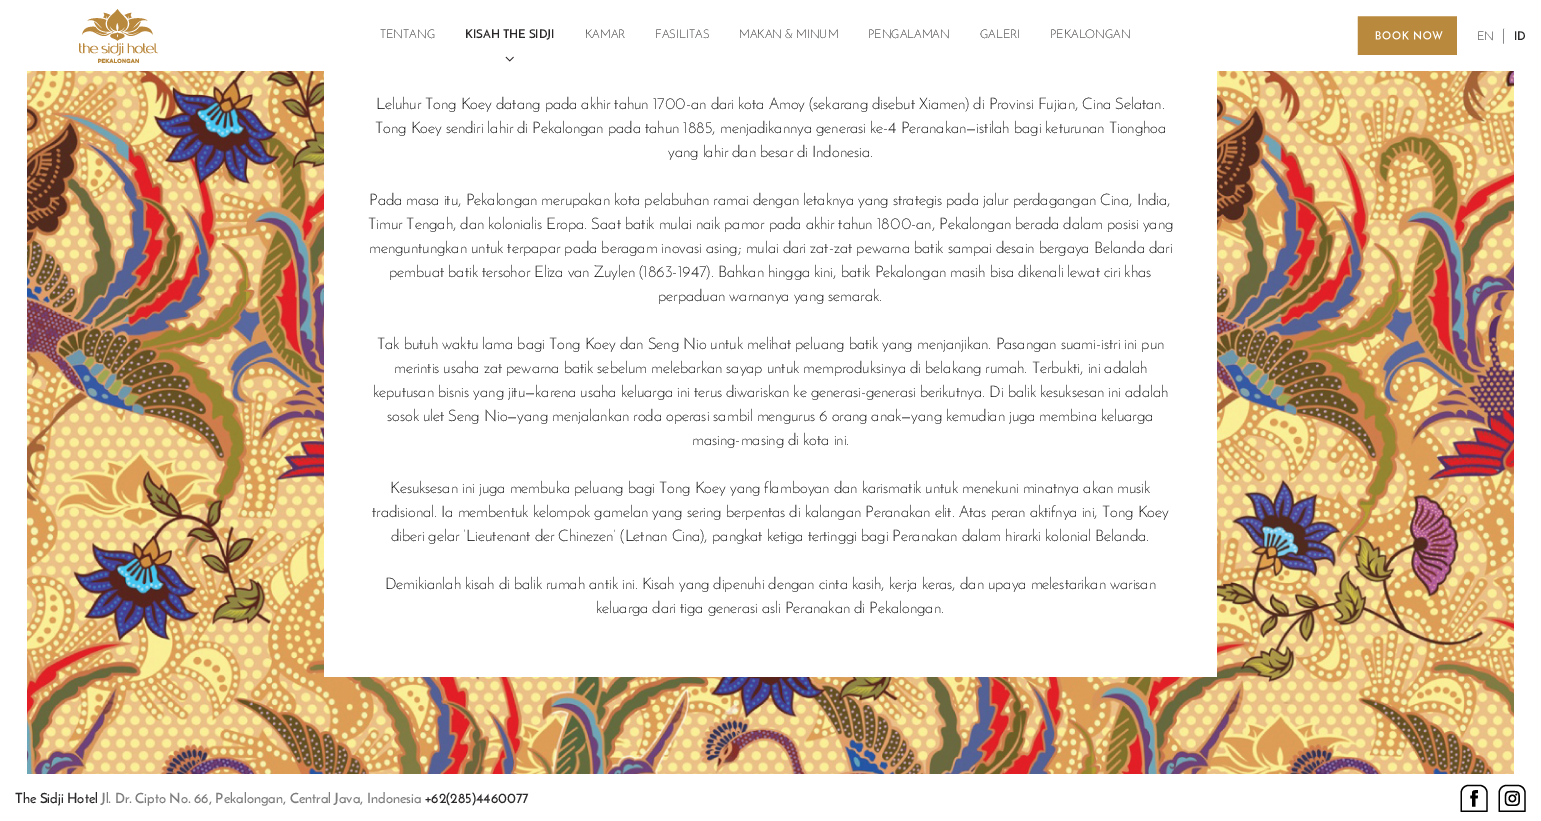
%!PS
<< /PageSize [1541 821] >> setpagedevice
/co { dup -16 bitshift 255 div exch dup -8 bitshift 255 and 255 div exch 255 and 255 div setrgbcolor } def
/fn { [ exch dup neg 0 0 3 -1 roll 0 0 ] selectfont } def
/tx { co fn moveto show } def
/bx { co rectfill } def
/im { 5 dict begin { /h /w /y /x /name } { exch def } forall
  gsave x y translate w h scale
  w h 8 [w 0 0 h 0 0] name (r) file false 3 colorimage grestore end } def
0 821 translate 1 -1 scale
4 setmiterlimit
0 0 1541 821 16#FFFFFF bx
(media/1.raw) 79 9 79 54 im
(media/2.raw) 505 56 9 6 im
(media/3.raw) 1357 16 100 39 im
(media/4.raw) 27 71 1487 703 im
324 71 893 606 16#FFFFFF bx
(media/5.raw) 1460 784 28 28 im
(media/6.raw) 1498 784 28 28 im
(TENTANG) 380 38 /JosefinSans-Light 12 16#2A2829 tx
(KISAH THE SIDJI) 465 38 /JosefinSans-SemiBold 12 16#2A2829 tx
(KAMAR) 585 38 /JosefinSans-Light 12 16#2A2829 tx
(FASILITAS) 655 38 /JosefinSans-Light 12 16#2A2829 tx
(MAKAN & MINUM) 739 38 /JosefinSans-Light 12 16#2A2829 tx
(PENGALAMAN) 868 38 /JosefinSans-Light 12 16#2A2829 tx
(GALERI) 980 38 /JosefinSans-Light 12 16#2A2829 tx
(PEKALONGAN) 1050 38 /JosefinSans-Light 12 16#2A2829 tx
(EN) 1477 40 /JosefinSans-Light 12 16#2A2829 tx
(|) 1502 40 /JosefinSans-Light 16 16#212529 tx
(ID) 1514 40 /JosefinSans-SemiBold 12 16#2A2829 tx
(Leluhur Tong Koey datang pada akhir tahun 1700-an dari kota Amoy \(sekarang disebut Xiamen\) di Provinsi Fujian, Cina Selatan.) 376 109 /JosefinSans-Light 16 16#000000 tx
(Tong Koey sendiri lahir di Pekalongan pada tahun 1885, menjadikannya generasi ke-4 Peranakan—istilah bagi keturunan Tionghoa) 375 133 /JosefinSans-Light 16 16#000000 tx
(yang lahir dan besar di Indonesia.) 668 157 /JosefinSans-Light 16 16#000000 tx
(Pada masa itu, Pekalongan merupakan kota pelabuhan ramai dengan letaknya yang strategis pada jalur perdagangan Cina, India,) 369 205 /JosefinSans-Light 16 16#000000 tx
(Timur Tengah, dan kolonialis Eropa. Saat batik mulai naik pamor pada akhir tahun 1800-an, Pekalongan berada dalam posisi yang) 368 229 /JosefinSans-Light 16 16#000000 tx
(menguntungkan untuk terpapar pada beragam inovasi asing; mulai dari zat-zat pewarna batik sampai desain bergaya Belanda dari) 369 253 /JosefinSans-Light 16 16#000000 tx
(pembuat batik tersohor Eliza van Zuylen \(1863-1947\). Bahkan hingga kini, batik Pekalongan masih bisa dikenali lewat ciri khas) 389 277 /JosefinSans-Light 16 16#000000 tx
(perpaduan warnanya yang semarak.) 658 301 /JosefinSans-Light 16 16#000000 tx
(Tak butuh waktu lama bagi Tong Koey dan Seng Nio untuk melihat peluang batik yang menjanjikan. Pasangan suami-istri ini pun) 377 349 /JosefinSans-Light 16 16#000000 tx
(merintis usaha zat pewarna batik sebelum melebarkan sayap untuk memproduksinya di belakang rumah. Terbukti, ini adalah) 394 373 /JosefinSans-Light 16 16#000000 tx
(keputusan bisnis yang jitu—karena usaha keluarga ini terus diwariskan ke generasi-generasi berikutnya. Di balik kesuksesan ini adalah) 373 397 /JosefinSans-Light 16 16#000000 tx
(sosok ulet Seng Nio—yang menjalankan roda operasi sambil mengurus 6 orang anak—yang kemudian juga membina keluarga) 387 421 /JosefinSans-Light 16 16#000000 tx
(masing-masing di kota ini.) 692 445 /JosefinSans-Light 16 16#000000 tx
(Kesuksesan ini juga membuka peluang bagi Tong Koey yang flamboyan dan karismatik untuk menekuni minatnya akan musik) 390 493 /JosefinSans-Light 16 16#000000 tx
(tradisional. Ia membentuk kelompok gamelan yang sering berpentas di kalangan Peranakan elit. Atas peran aktifnya ini, Tong Koey) 372 517 /JosefinSans-Light 16 16#000000 tx
(diberi gelar ‘Lieutenant der Chinezen’ \(Letnan Cina\), pangkat ketiga tertinggi bagi Peranakan dalam hirarki kolonial Belanda.) 391 541 /JosefinSans-Light 16 16#000000 tx
(Demikianlah kisah di balik rumah antik ini. Kisah yang dipenuhi dengan cinta kasih, kerja keras, dan upaya melestarikan warisan) 385 589 /JosefinSans-Light 16 16#000000 tx
(keluarga dari tiga generasi asli Peranakan di Pekalongan.) 596 613 /JosefinSans-Light 16 16#000000 tx
(The Sidji Hotel) 15 803 /JosefinSans-SemiBold 14 16#2A2829 tx
(Jl. Dr. Cipto No. 66, Pekalongan, Central Java, Indonesia) 101 803 /JosefinSans-SemiBold 14 16#7F7E7F tx
(+62\(285\)4460077) 425 803 /JosefinSans-SemiBold 14 16#2A2829 tx
showpage
